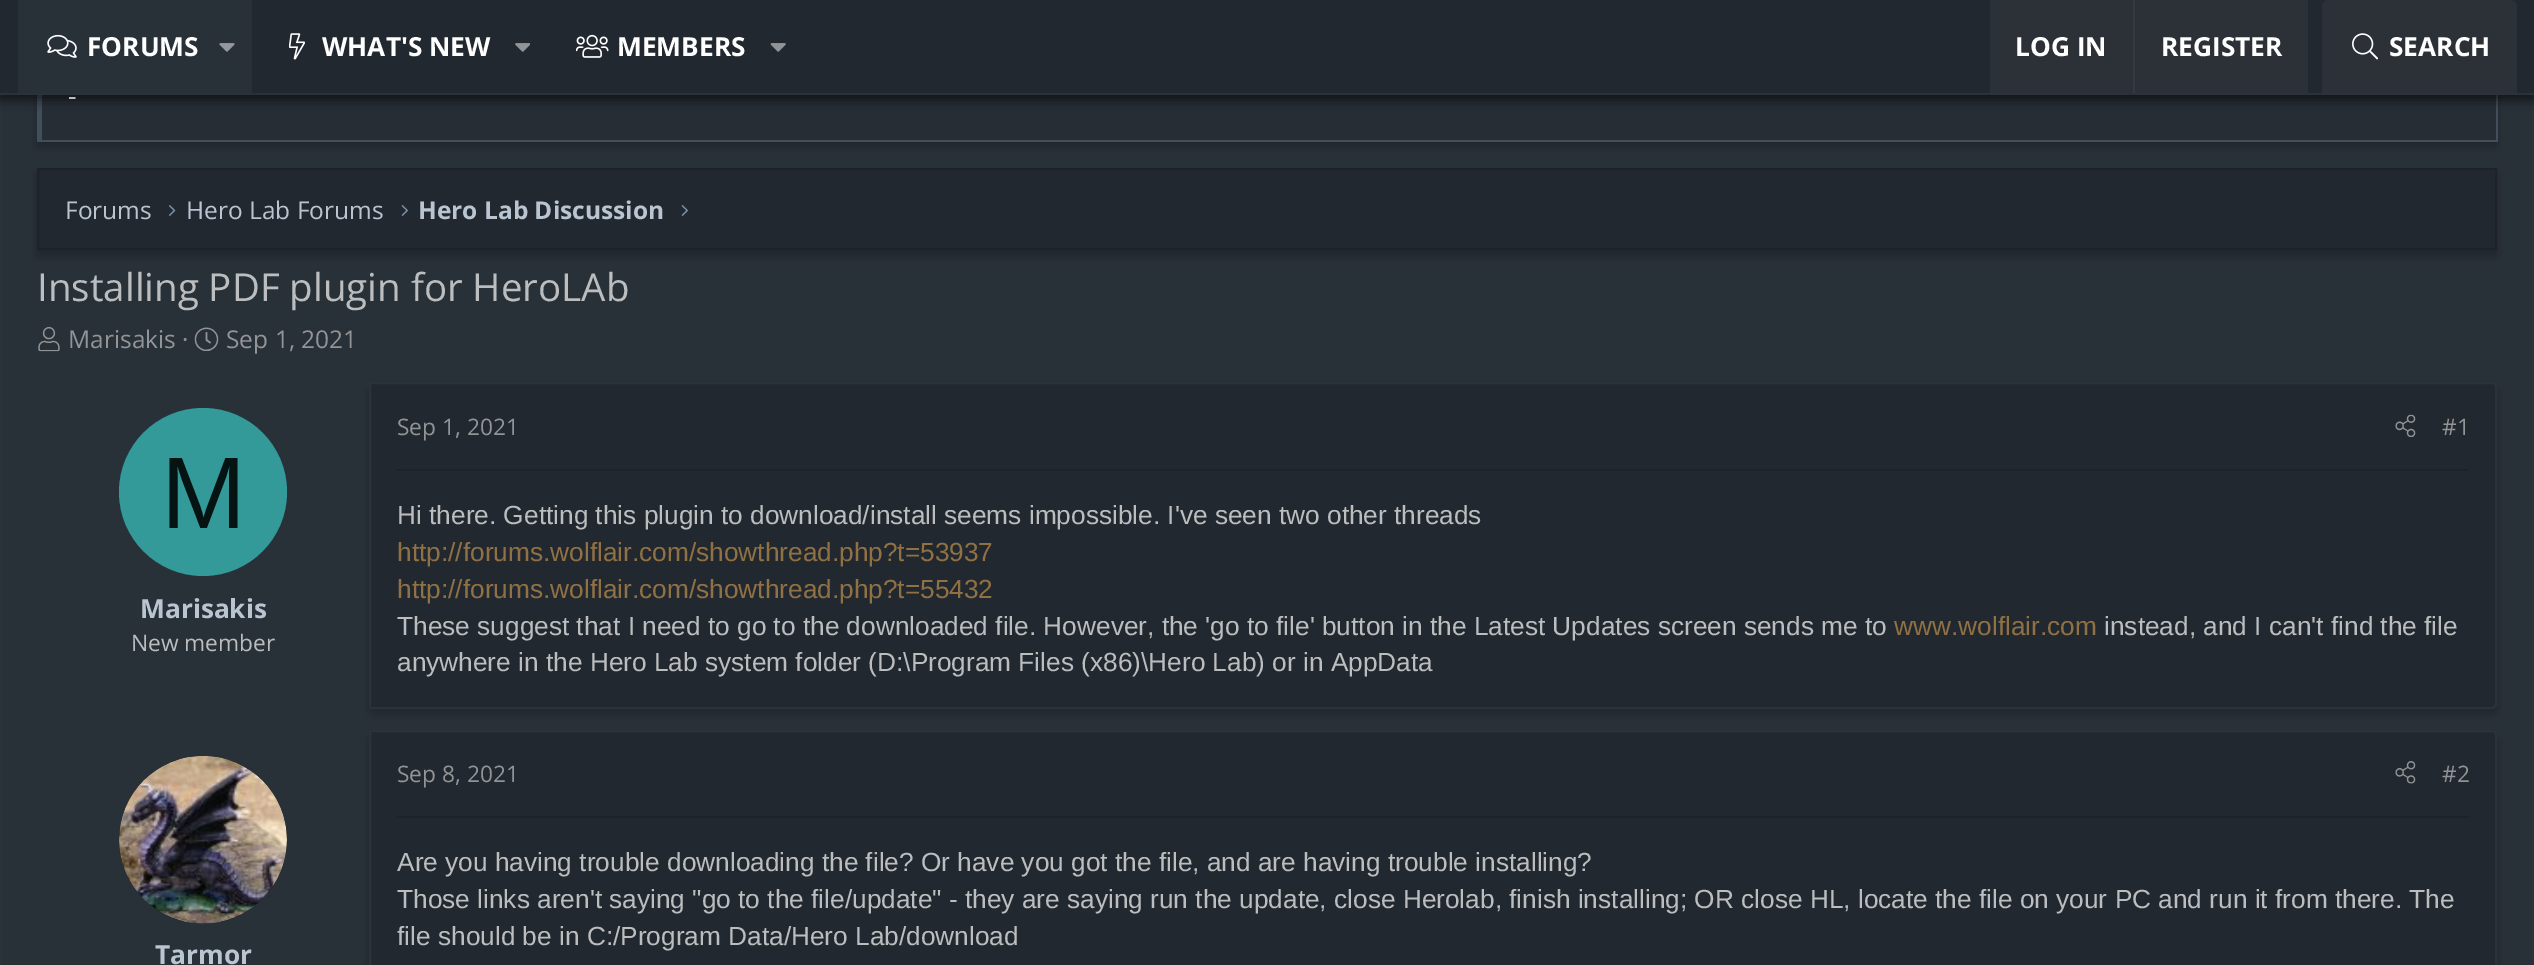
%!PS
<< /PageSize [2534 965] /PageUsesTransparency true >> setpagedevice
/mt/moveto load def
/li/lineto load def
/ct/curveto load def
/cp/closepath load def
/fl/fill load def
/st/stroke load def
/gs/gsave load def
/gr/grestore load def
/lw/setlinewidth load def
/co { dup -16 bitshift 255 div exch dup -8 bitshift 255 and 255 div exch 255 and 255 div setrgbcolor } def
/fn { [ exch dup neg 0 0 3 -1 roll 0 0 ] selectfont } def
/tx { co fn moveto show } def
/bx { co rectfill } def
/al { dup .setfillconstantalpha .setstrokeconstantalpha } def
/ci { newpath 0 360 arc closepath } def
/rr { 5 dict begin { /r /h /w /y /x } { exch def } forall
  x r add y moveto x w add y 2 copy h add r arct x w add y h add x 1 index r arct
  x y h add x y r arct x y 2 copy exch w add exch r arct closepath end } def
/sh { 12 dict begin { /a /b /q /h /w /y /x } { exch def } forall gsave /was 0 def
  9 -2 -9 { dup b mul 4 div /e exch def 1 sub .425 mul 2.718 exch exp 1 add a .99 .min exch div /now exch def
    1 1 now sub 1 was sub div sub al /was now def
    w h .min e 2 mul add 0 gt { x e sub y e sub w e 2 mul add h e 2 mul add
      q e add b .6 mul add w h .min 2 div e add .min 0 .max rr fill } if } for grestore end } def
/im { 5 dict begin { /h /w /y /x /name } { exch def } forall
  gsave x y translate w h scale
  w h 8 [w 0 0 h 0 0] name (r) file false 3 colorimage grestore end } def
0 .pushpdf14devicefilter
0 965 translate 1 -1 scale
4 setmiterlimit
0 0 2534 965 16#283038 bx
2532 95 2 870 16#2B323B bx
0 95 2 870 16#2B323B bx
16#000000 co
37 -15 2460 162 0 5 .23 sh
42 95 2454 45 16#262D35 bx
2496 95 2 47 16#424E5B bx
37 140 2460 2 16#424E5B bx
37 95 5 47 16#424E5B bx
16#000000 co
-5 -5 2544 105 0 7 .3 sh
0 5 2534 95 0 5 .23 sh
0 5 2534 95 0 5 .16 sh
0 0 2534 93 16#22282F bx
0 93 2534 2 16#2B323B bx
18 0 234 93 16#283038 bx
(media/1.raw) 47 34 30 24 im
(media/2.raw) 219 43 16 9 im
(media/3.raw) 289 33 16 27 im
(media/4.raw) 515 43 15 9 im
(media/5.raw) 576 34 33 24 im
(media/6.raw) 770 43 16 9 im
1990 0 318 93 16#2C3138 bx
2133 0 2 93 16#353A40 bx
16#2C3138 co
2329 0 mt 2510 0 li 2514 0 2517 3 2517 7 ct 2517 93 li 2322 93 li 2322 7 li 2322 3 2325 0 2329 0 ct cp fl
(media/7.raw) 2352 33 26 27 im
16#000000 co
37 173 2460 83 0 5 .23 sh
16#22282F co
38 169 mt 2496 169 li 2496 249 li 38 249 li cp gs fl gr
16#1E2329 co
2 lw
st
(media/8.raw) 169 205 7 11 im
(media/9.raw) 401 205 7 11 im
(media/9.raw) 681 205 7 11 im
(media/10.raw) 38 327 22 25 im
(media/11.raw) 194 327 25 24 im
16#339999 co
203 492 84 ci fl
16#000000 co
369 387 2128 327 5 5 .23 sh
16#22282F co
370 383 mt 2492 383 li 2494 383 2496 385 2496 387 ct 2496 704 li 2496 706 2494 708 2492 708 ct 370 708 li cp gs fl gr
16#2B323B co
st
397 469 2072 2 16#1E2329 bx
(media/12.raw) 2395 414 21 23 im
16#000000 co
369 735 2128 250 5 5 .23 sh
16#22282F co
370 731 mt 2492 731 li 2494 731 2496 733 2496 735 ct 2496 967 li 2496 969 2494 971 2492 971 ct 370 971 li cp gs fl gr
16#2B323B co
st
397 816 2072 2 16#1E2329 bx
(media/13.raw) 2395 761 21 23 im
16#22282F co
203 840 84 ci fl
(media/14.raw) 119 756 168 168 im
(FORUMS) 87 56 /OpenSans-Bold 26.25 16#FFFFFF tx
(WHAT'S NEW) 322 56 /OpenSans-Bold 26.25 16#FFFFFF tx
(MEMBERS) 617 56 /OpenSans-Bold 26.25 16#FFFFFF tx
(LOG IN) 2015 56 /OpenSans-Bold 26.25 16#FFFFFF tx
(REGISTER) 2161 56 /OpenSans-Bold 26.25 16#FFFFFF tx
(SEARCH) 2389 56 /OpenSans-Bold 26.25 16#FFFFFF tx
(-) 68 105 /OpenSans-Regular 26.25 16#BBBDBE tx
(Forums) 65 219 /OpenSans-Regular 24.5 16#BAC5D2 tx
(Hero Lab Forums) 186 219 /OpenSans-Regular 24.5 16#BAC5D2 tx
(Hero Lab Discussion) 418 219 /OpenSans-Bold 24.5 16#BAC5D2 tx
(Installing PDF plugin for HeroLAb) 37 301 /OpenSans-Regular 38.5 16#BBBDBE tx
(Marisakis ·) 68 348 /OpenSans-Regular 24.5 16#929496 tx
(Sep 1, 2021) 226 348 /OpenSans-Regular 24.5 16#929496 tx
(M) 161 528 /LiberationSans-Regular 102 16#061313 tx
(Marisakis) 140 618 /OpenSans-Bold 26.25 16#BAC5D2 tx
(New member) 131 651 /OpenSans-Regular 22.75 16#BBBDBE tx
(Sep 1, 2021) 397 435 /OpenSans-Regular 22.75 16#929496 tx
(#1) 2442 435 /OpenSans-Regular 22.75 16#929496 tx
(Hi there. Getting this plugin to download/install seems impossible. I've seen two other threads) 397 524 /LiberationSans-Regular 26.25 16#BBBDBE tx
(http://forums.wolflair.com/showthread.php?t=53937) 397 561 /LiberationSans-Regular 26.25 16#8F7143 tx
(http://forums.wolflair.com/showthread.php?t=55432) 397 598 /LiberationSans-Regular 26.25 16#8F7143 tx
(These suggest that I need to go to the downloaded file. However, the 'go to file' button in the Latest Updates screen sends me to) 397 635 /LiberationSans-Regular 26.25 16#BBBDBE tx
(www.wolflair.com) 1894 635 /LiberationSans-Regular 26.25 16#8F7143 tx
(instead, and I can't find the file) 2104 635 /LiberationSans-Regular 26.25 16#BBBDBE tx
(anywhere in the Hero Lab system folder \(D:\\Program Files \(x86\)\\Hero Lab\) or in AppData) 397 671 /LiberationSans-Regular 26.25 16#BBBDBE tx
(Sep 8, 2021) 397 782 /OpenSans-Regular 22.75 16#929496 tx
(#2) 2442 782 /OpenSans-Regular 22.75 16#929496 tx
(Are you having trouble downloading the file? Or have you got the file, and are having trouble installing?) 397 871 /LiberationSans-Regular 26.25 16#BBBDBE tx
(Those links aren't saying "go to the file/update" - they are saying run the update, close Herolab, finish installing; OR close HL, locate the file on your PC and run it from there. The) 397 908 /LiberationSans-Regular 26.25 16#BBBDBE tx
(file should be in C:/Program Data/Hero Lab/download) 397 945 /LiberationSans-Regular 26.25 16#BBBDBE tx
(Tarmor) 155 964 /OpenSans-Bold 26.25 16#BAC5D2 tx
.poppdf14devicefilter showpage
